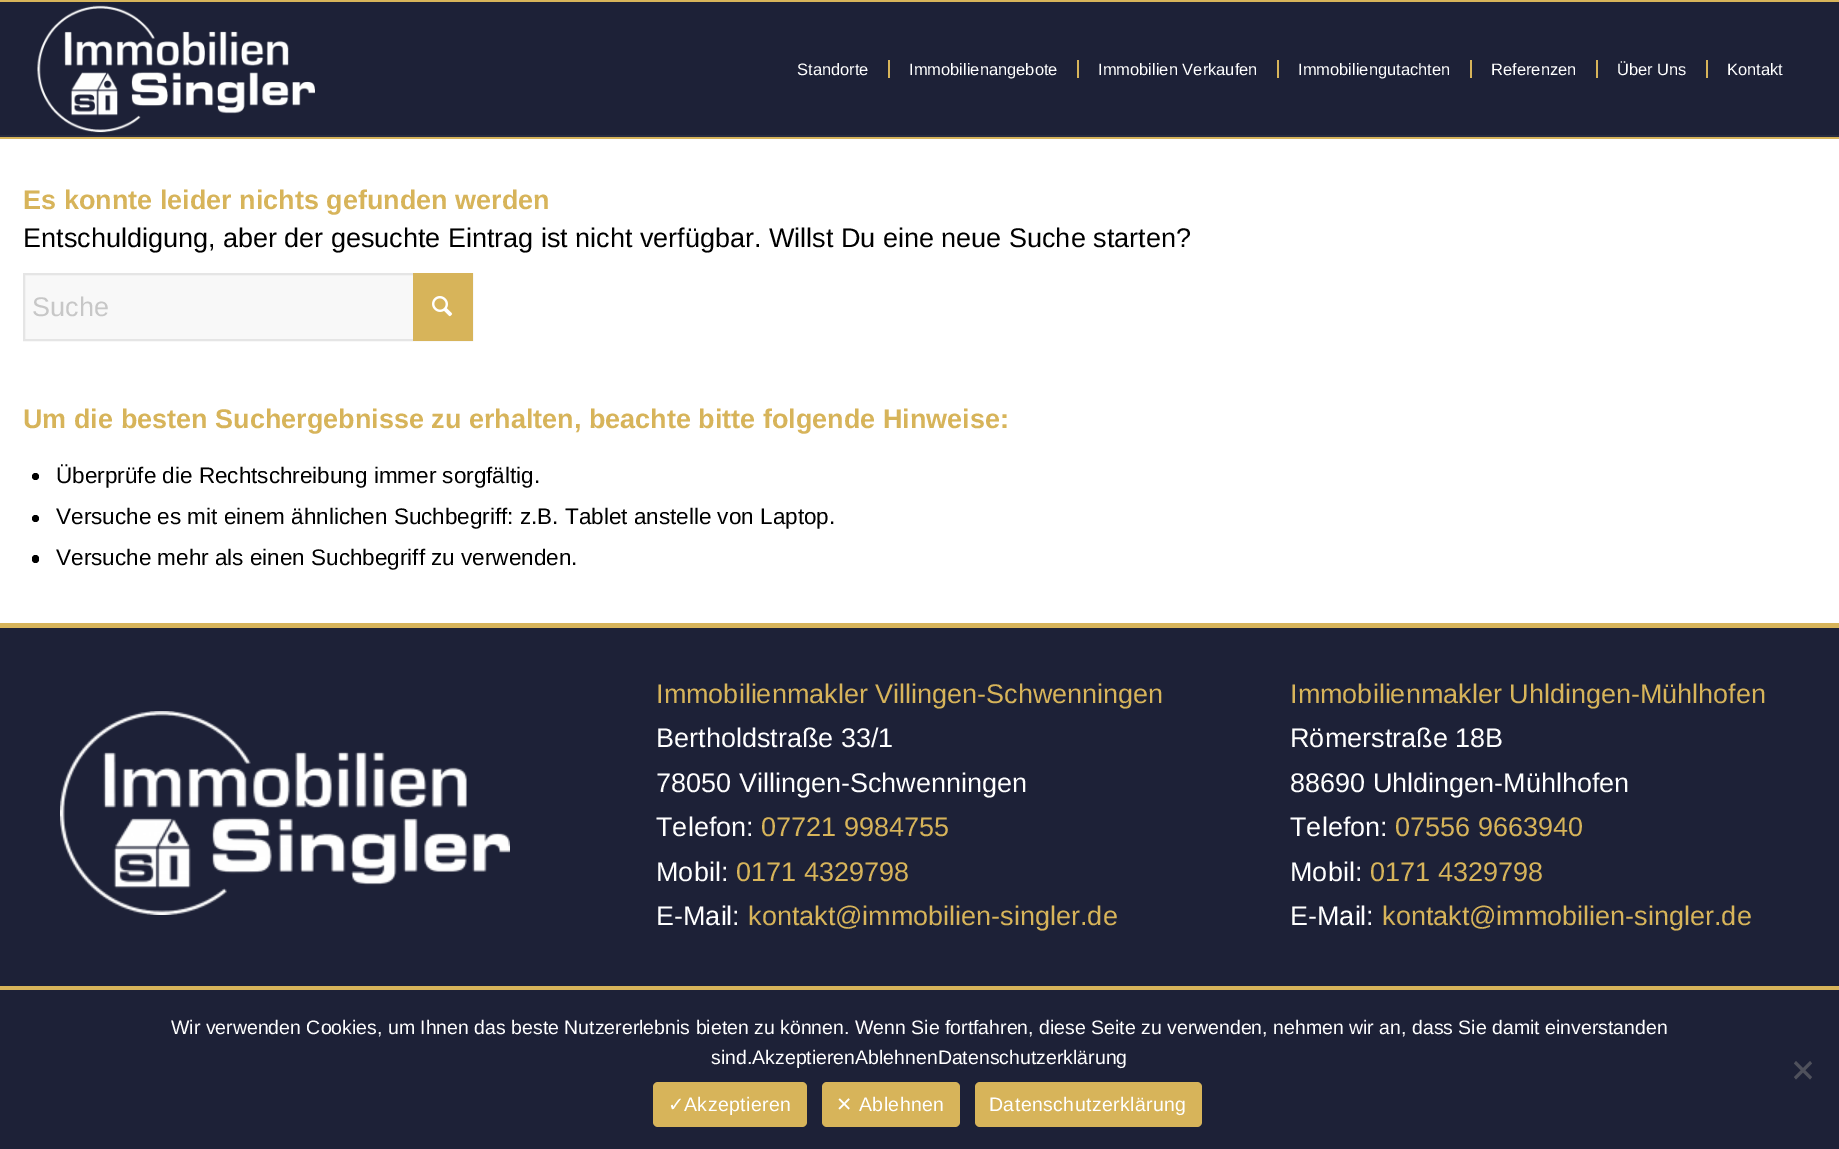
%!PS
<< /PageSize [1839 1149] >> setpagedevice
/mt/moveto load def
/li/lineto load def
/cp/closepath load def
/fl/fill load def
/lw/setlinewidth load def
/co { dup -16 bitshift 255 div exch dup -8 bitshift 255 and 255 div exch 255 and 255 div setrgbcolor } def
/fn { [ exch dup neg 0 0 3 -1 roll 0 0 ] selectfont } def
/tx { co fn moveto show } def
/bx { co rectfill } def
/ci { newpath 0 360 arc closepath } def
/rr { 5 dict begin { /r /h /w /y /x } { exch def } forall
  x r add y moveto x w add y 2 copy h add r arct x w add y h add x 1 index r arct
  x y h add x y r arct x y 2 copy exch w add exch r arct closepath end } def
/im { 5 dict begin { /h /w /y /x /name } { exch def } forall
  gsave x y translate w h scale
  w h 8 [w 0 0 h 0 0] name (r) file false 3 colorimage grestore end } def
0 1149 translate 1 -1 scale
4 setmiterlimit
0 0 1839 1149 16#1D2137 bx
0 0 1839 2 16#D7B45A bx
0 137 1839 2 16#D7B45A bx
(media/1.raw) 37 5 278 128 im
888 60 2 18 16#D7B45A bx
1077 60 2 18 16#D7B45A bx
1277 60 2 18 16#D7B45A bx
1470 60 2 18 16#D7B45A bx
1596 60 2 18 16#D7B45A bx
1706 60 2 18 16#D7B45A bx
0 139 1839 484 16#FFFFFF bx
0 135 1839 2 16#272B40 bx
25 275 388 64 16#F8F8F8 bx
16#E5E5E5 co
2 lw
24 274 448 66 rectstroke
413 273 60 68 16#D7B45A bx
(media/2.raw) 432 296 21 21 im
16#000000 co
35.5 476.5 3.5 ci fl
35.5 518.5 3.5 ci fl
32 555 7 8 3.5 rr fl
0 623 1839 5 16#D7B45A bx
0 986 1839 4 16#D7B45A bx
(media/3.raw) 60 711 450 204 im
16#4F515C co
1810 1061 mt 1812 1063.5 li 1796 1079.5 li 1794 1077 li cp fl
1794 1063.5 mt 1796 1061 li 1812 1077 li 1810 1079.5 li cp fl
16#D7B45A co
653 1082 154 45 5 rr fl
822 1082 138 45 5 rr fl
975 1082 227 45 5 rr fl
(Standorte) 797 75 /LiberationSans-Regular 16.5 16#FFFFFF tx
(Immobilienangebote) 909 75 /LiberationSans-Regular 16.5 16#FFFFFF tx
(Immobilien Verkaufen) 1098 75 /LiberationSans-Regular 16.5 16#FFFFFF tx
(Immobiliengutachten) 1298 75 /LiberationSans-Regular 16.5 16#FFFFFF tx
(Referenzen) 1491 75 /LiberationSans-Regular 16.5 16#FFFFFF tx
(Über Uns) 1617 75 /LiberationSans-Regular 16.5 16#FFFFFF tx
(Kontakt) 1727 75 /LiberationSans-Regular 16.5 16#FFFFFF tx
(Es konnte leider nichts gefunden werden) 23 209 /LiberationSans-Bold 27 16#D7B45A tx
(Entschuldigung, aber der gesuchte Eintrag ist nicht verfügbar. Willst Du eine neue Suche starten?) 23 247 /LiberationSans-Regular 27 16#000000 tx
(Suche) 32 316 /LiberationSans-Regular 27 16#C7C7C7 tx
(Um die besten Suchergebnisse zu erhalten, beachte bitte folgende Hinweise:) 23 428 /LiberationSans-Bold 27 16#D7B45A tx
(Überprüfe die Rechtschreibung immer sorgfältig.) 56 483 /LiberationSans-Regular 22.5 16#000000 tx
(Versuche es mit einem ähnlichen Suchbegriff: z.B. Tablet anstelle von Laptop.) 56 524 /LiberationSans-Regular 22.5 16#000000 tx
(Versuche mehr als einen Suchbegriff zu verwenden.) 56 565 /LiberationSans-Regular 22.5 16#000000 tx
(Immobilienmakler Villingen-Schwenningen) 656 703 /LiberationSans-Regular 27 16#D7B45A tx
(Bertholdstraße 33/1) 656 747 /LiberationSans-Regular 27 16#FFFFFF tx
(78050 Villingen-Schwenningen) 656 792 /LiberationSans-Regular 27 16#FFFFFF tx
(Telefon:) 656 836 /LiberationSans-Regular 27 16#FFFFFF tx
(07721 9984755) 761 836 /LiberationSans-Regular 27 16#D7B45A tx
(Mobil:) 656 881 /LiberationSans-Regular 27 16#FFFFFF tx
(0171 4329798) 736 881 /LiberationSans-Regular 27 16#D7B45A tx
(E-Mail:) 656 925 /LiberationSans-Regular 27 16#FFFFFF tx
(kontakt@immobilien-singler.de) 748 925 /LiberationSans-Regular 27 16#D7B45A tx
(Immobilienmakler Uhldingen-Mühlhofen) 1290 703 /LiberationSans-Regular 27 16#D7B45A tx
(Römerstraße 18B) 1290 747 /LiberationSans-Regular 27 16#FFFFFF tx
(88690 Uhldingen-Mühlhofen) 1290 792 /LiberationSans-Regular 27 16#FFFFFF tx
(Telefon:) 1290 836 /LiberationSans-Regular 27 16#FFFFFF tx
(07556 9663940) 1395 836 /LiberationSans-Regular 27 16#D7B45A tx
(Mobil:) 1290 881 /LiberationSans-Regular 27 16#FFFFFF tx
(0171 4329798) 1370 881 /LiberationSans-Regular 27 16#D7B45A tx
(E-Mail:) 1290 925 /LiberationSans-Regular 27 16#FFFFFF tx
(kontakt@immobilien-singler.de) 1382 925 /LiberationSans-Regular 27 16#D7B45A tx
(Wir verwenden Cookies, um Ihnen das beste Nutzererlebnis bieten zu können. Wenn Sie fortfahren, diese Seite zu verwenden, nehmen wir an, dass Sie damit einverstanden) 171 1034 /LiberationSans-Regular 19.5 16#FFFFFF tx
(sind.AkzeptierenAblehnenDatenschutzerklärung) 711 1064 /LiberationSans-Regular 19.5 16#FFFFFF tx
/DejaVuSans-Regular 19.5 fn
668 1111 mt .4 0 (✓) ashow
/LiberationSans-Regular 19.5 fn
684 1111 mt .4 0 (Akzeptieren) ashow
/DejaVuSans-Regular 19.5 fn
836 1111 mt .4 0 (✕) ashow
/LiberationSans-Regular 19.5 fn
859 1111 mt .4 0 (Ablehnen) ashow
989 1111 mt .4 0 (Datenschutzerklärung) ashow
showpage
